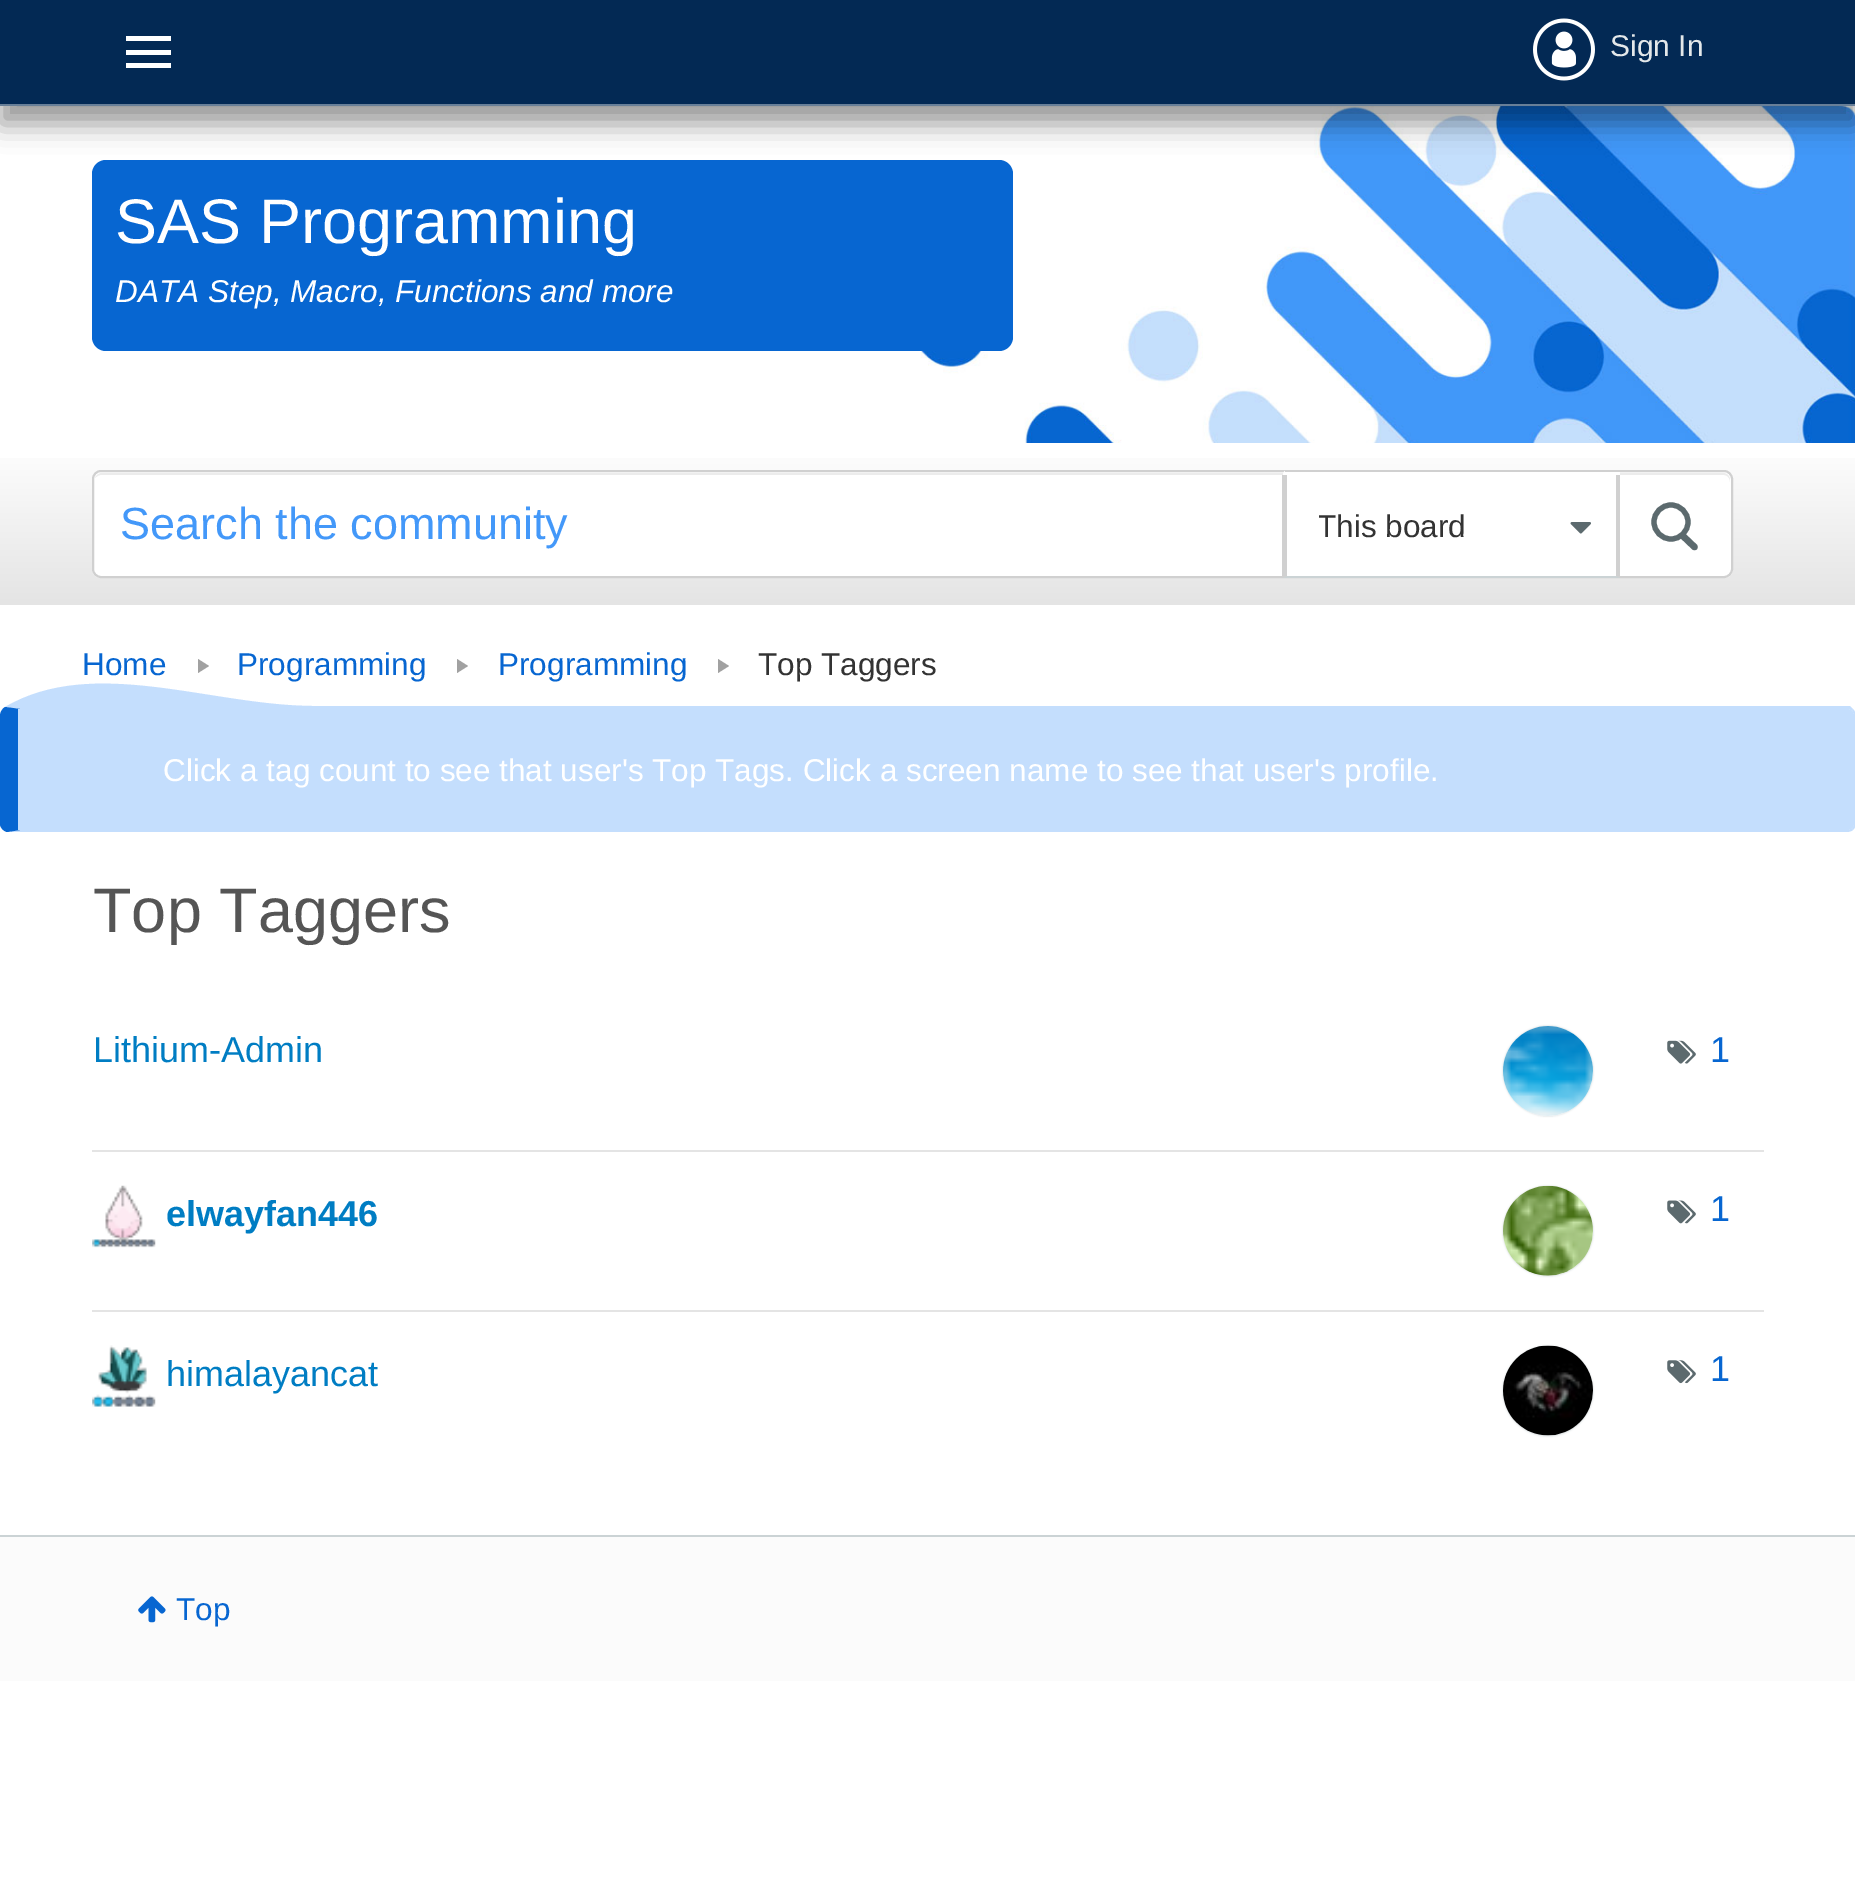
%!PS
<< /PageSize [1855 1882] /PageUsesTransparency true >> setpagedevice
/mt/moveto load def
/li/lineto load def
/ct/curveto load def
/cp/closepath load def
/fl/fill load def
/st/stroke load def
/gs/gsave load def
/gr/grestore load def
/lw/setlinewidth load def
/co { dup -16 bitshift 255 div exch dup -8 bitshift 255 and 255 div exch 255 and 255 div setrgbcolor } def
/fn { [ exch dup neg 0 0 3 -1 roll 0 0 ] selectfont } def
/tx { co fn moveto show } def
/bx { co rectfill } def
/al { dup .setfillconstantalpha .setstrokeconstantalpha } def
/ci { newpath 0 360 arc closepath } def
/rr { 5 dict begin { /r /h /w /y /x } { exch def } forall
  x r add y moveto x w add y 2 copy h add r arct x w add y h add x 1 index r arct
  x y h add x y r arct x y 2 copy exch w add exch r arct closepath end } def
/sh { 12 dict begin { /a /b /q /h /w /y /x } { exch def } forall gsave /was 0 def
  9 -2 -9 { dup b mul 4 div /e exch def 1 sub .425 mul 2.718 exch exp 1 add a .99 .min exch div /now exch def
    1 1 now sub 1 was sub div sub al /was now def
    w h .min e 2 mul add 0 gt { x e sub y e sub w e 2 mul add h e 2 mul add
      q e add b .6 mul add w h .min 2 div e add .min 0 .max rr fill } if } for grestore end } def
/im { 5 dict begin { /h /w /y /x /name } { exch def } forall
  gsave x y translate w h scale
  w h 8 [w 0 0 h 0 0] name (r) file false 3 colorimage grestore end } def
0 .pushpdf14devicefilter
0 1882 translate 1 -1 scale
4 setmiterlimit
0 0 1855 1882 16#FFFFFF bx
(media/2.raw) 847 106 1008 337 im
16#000000 co
0 18 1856 106 0 13.5 .4 sh
0 0 1855 104 16#032954 bx
0 104 1855 2 16#687F98 bx
126 36 45 5 16#FFFFFF bx
126 50 45 5 16#FFFFFF bx
126 63 45 5 16#FFFFFF bx
(media/1.raw) 1533 18 62 63 im
16#0766D1 co
92 160 921 191 14 rr fl
gs 0 458 mt 1855 458 li 1855 605 li 0 605 li cp clip newpath
<< /ShadingType 2 /ColorSpace /DeviceRGB /Coords [928 443 928 605] /Extend [true true] /Function << /FunctionType 2 /Domain [0 1] /C0 [1 1 1] /C1 [.894 .894 .894] /N 1 >> >> shfill gr
16#FFFFFF co
92 470 1641 108 9 rr fl
16#ECECEC co
101 475 mt 1724 475 li 1727 475 1730 478 1730 482 ct 1730 480 li 1730 476 1727 473 1723 473 ct 102 473 li 99 473 96 475 95 478 ct 97 476 99 475 101 475 ct cp fl
16#D0D0D0 co
2 lw
93 471 1639 106 8 rr st
16#5C6A6E co
5.2 lw
1671 522 17 ci st
6.5 lw
1 setlinecap
1683.5 536.5 mt 1694.5 547 li st
16#FFFFFF co
1288 470 mt 1620 470 li 1620 576 li 1288 576 li 1285 576 1283 574 1283 571 ct 1283 475 li 1283 472 1285 470 1288 470 ct cp fl
1285 470 335 2 16#D0D0D0 bx
1620 475 mt 1620 578 li 1616 576 li 1616 475 li cp fl
16#CBD3D5 co
1620 578 mt 1282 578 li 1287 576 li 1616 576 li cp fl
16#D0D0D0 co
1282 578 mt 1282 475 li 1287 475 li 1287 576 li cp fl
(media/3.raw) 1570 522 21 12 im
16#A1A1A1 co
209 666 mt 198 673 li 198 659 li cp fl
468 666 mt 457 673 li 457 659 li cp fl
729 666 mt 718 673 li 718 659 li cp fl
16#C4DEFD co
18 709 mt 1847 709 li 1851 709 1854 712 1854 716 ct 1854 824 li 1854 827 1851 830 1847 830 ct 18 830 li cp fl
5 707 mt 94 655 211 706 314 706 ct 1850 706 li 1853 709 li 1852 711 li 1851 710 1849 709 1847 709 ct 20 709 li cp fl
1853 709 mt 1855 711 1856 714 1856 716 ct 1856 824 li 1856 826 1855 828 1853 830 ct 1852 828 li 1853 827 1854 826 1854 824 ct 1854 716 li 1854 714 1853 712 1852 711 ct cp fl
1853 830 mt 1852 831 1849 832 1847 832 ct 7 832 li 20 830 li 1847 830 li 1849 830 1851 829 1852 828 ct cp fl
16#0766D1 co
18 709 mt 20 709 li 5 707 li 2 709 0 712 0 716 ct 0 824 li 0 827 3 831 7 832 ct 20 830 li 18 830 li cp fl
92 1150 1672 2 16#E4E4E4 bx
16#CBD3D5 co
1503 1026 90 90 45 1 1 sh
(media/4.raw) 1503 1026 90 90 im
(media/5.raw) 1667 1040 29 24 im
92 1310 1672 2 16#E4E4E4 bx
(media/6.raw) 92 1185 64 63 im
16#CBD3D5 co
1503 1186 90 90 45 1 1 sh
(media/7.raw) 1503 1185 90 91 im
(media/8.raw) 1667 1200 29 24 im
(media/9.raw) 92 1345 64 62 im
1503 1346 90 90 45 1 1 sh
(media/10.raw) 1503 1345 90 91 im
(media/11.raw) 1667 1360 29 24 im
0 1537 1855 144 16#FBFBFB bx
0 1535 1855 2 16#CBD3D5 bx
(media/12.raw) 138 1596 28 27 im
(Sign In) 1610 56 /LiberationSans-Regular 30 16#E4E8EA tx
(SAS Programming) 115 243 /LiberationSans-Regular 63 16#FFFFFF tx
(DATA Step, Macro, Functions and more) 115 302 /LiberationSans-Italic 31.5 16#FFFFFF tx
(Search the community) 120 539 /LiberationSans-Regular 45 16#4398F9 tx
gs
1319 500 234 54 rectclip
(This board) 1317 537 /LiberationSans-Regular 31.5 16#333333 tx
gr
(Home) 82 675 /LiberationSans-Regular 31.5 16#0766D1 tx
(Programming) 237 675 /LiberationSans-Regular 31.5 16#0766D1 tx
(Programming) 498 675 /LiberationSans-Regular 31.5 16#0766D1 tx
(Top Taggers) 758 675 /LiberationSans-Regular 31.5 16#333333 tx
(Click a tag count to see that user's Top Tags. Click a screen name to see that user's profile.) 163 781 /LiberationSans-Regular 31.5 16#FFFFFF tx
(Top Taggers) 93 932 /LiberationSans-Regular 63 16#555555 tx
(Lithium-Admin) 93 1062 /LiberationSans-Regular 36 16#007DC3 tx
(1) 1710 1062 /LiberationSans-Regular 36 16#0766D1 tx
(elwayfan446) 166 1226 /LiberationSans-Bold 36 16#007DC3 tx
(1) 1710 1221 /LiberationSans-Regular 36 16#0766D1 tx
(himalayancat) 166 1386 /LiberationSans-Regular 36 16#007DC3 tx
(1) 1710 1381 /LiberationSans-Regular 36 16#0766D1 tx
(Top) 176 1620 /LiberationSans-Regular 31.5 16#0766D1 tx
.poppdf14devicefilter showpage
